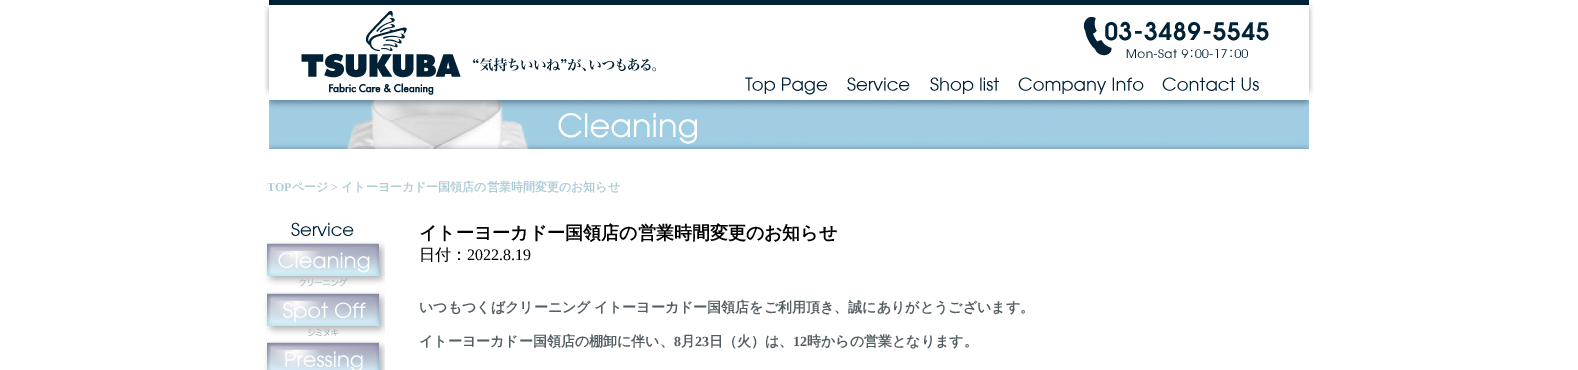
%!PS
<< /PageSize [1578 370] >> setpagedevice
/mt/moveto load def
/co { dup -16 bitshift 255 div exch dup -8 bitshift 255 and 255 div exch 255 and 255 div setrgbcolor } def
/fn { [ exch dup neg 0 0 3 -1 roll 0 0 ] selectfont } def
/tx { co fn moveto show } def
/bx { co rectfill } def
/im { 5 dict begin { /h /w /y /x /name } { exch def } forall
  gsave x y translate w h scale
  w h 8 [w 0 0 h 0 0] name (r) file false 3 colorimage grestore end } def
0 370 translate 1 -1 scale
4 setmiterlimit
0 0 1578 370 16#FFFFFF bx
(media/1.raw) 264 0 1050 96 im
(media/2.raw) 301 11 355 84 im
(media/3.raw) 1083 16 186 43 im
(media/4.raw) 745 77 82 18 im
(media/5.raw) 847 77 63 14 im
(media/6.raw) 930 77 69 17 im
(media/7.raw) 1018 77 126 18 im
(media/8.raw) 1162 77 97 14 im
(media/9.raw) 269 100 1040 49 im
(media/10.raw) 291 221 63 15 im
(media/11.raw) 261 239 124 48 im
(media/12.raw) 261 287 124 49 im
(media/13.raw) 262 336 123 34 im
(TOP) 267 191 /LiberationSerif-Bold 12 16#AECCD5 tx
(ページ) 292 191 /WenQuanYiZenHei-Bold 12 16#AECCD5 tx
(>) 331 191 /LiberationSerif-Bold 12 16#AECCD5 tx
(イトーヨーカドー国領店の営業時間変更のお知らせ) 341 191 /WenQuanYiZenHei-Bold 12 16#AECCD5 tx
(イトーヨーカドー国領店の営業時間変更のお知らせ) 419 239 /WenQuanYiZenHei-Bold 18 16#000000 tx
(日付：) 419 260 /WenQuanYiZenHei-Medium 16 16#000000 tx
(2022.8.19) 467 260 /LiberationSerif-Regular 16 16#000000 tx
/WenQuanYiZenHei-Bold 14 fn
16#525E63 co
419 312 mt -1 0 32 (いつもつくばクリーニング イトーヨーカドー国領店をご利用頂き、誠にありがとうございます。) widthshow
(イトーヨーカドー国領店の棚卸に伴い、) 419 346 /WenQuanYiZenHei-Bold 14 16#525E63 tx
(8) 674 346 /LiberationSerif-Bold 14 16#525E63 tx
(月) 681 346 /WenQuanYiZenHei-Bold 14 16#525E63 tx
(23) 695 346 /LiberationSerif-Bold 14 16#525E63 tx
(日（火）は、) 709 346 /WenQuanYiZenHei-Bold 14 16#525E63 tx
(12) 793 346 /LiberationSerif-Bold 14 16#525E63 tx
(時からの営業となります。) 807 346 /WenQuanYiZenHei-Bold 14 16#525E63 tx
showpage
